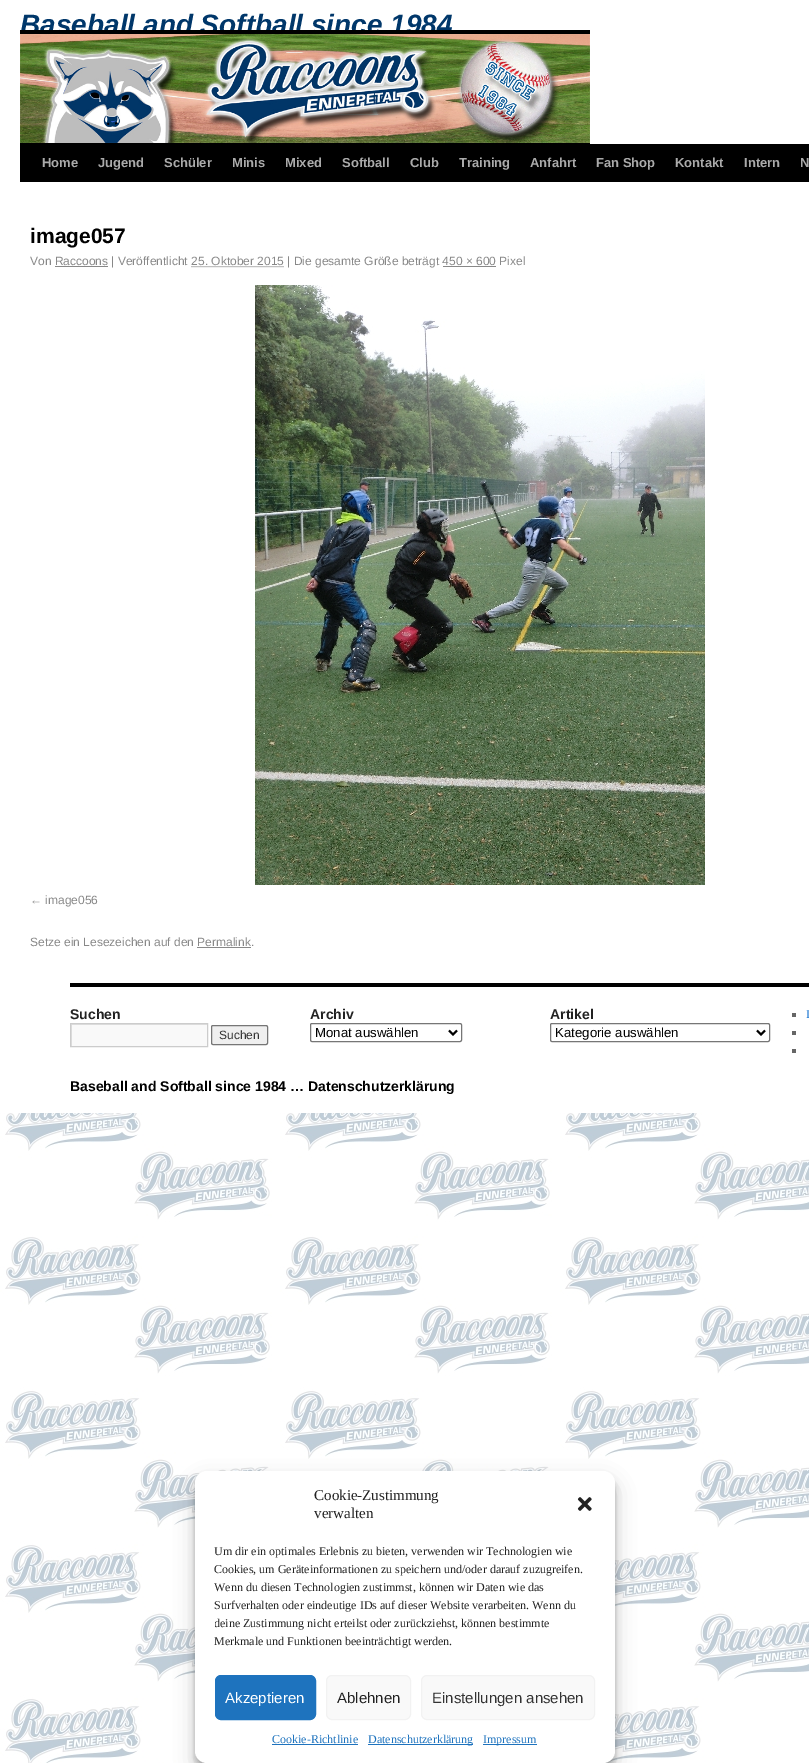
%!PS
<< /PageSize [809 1763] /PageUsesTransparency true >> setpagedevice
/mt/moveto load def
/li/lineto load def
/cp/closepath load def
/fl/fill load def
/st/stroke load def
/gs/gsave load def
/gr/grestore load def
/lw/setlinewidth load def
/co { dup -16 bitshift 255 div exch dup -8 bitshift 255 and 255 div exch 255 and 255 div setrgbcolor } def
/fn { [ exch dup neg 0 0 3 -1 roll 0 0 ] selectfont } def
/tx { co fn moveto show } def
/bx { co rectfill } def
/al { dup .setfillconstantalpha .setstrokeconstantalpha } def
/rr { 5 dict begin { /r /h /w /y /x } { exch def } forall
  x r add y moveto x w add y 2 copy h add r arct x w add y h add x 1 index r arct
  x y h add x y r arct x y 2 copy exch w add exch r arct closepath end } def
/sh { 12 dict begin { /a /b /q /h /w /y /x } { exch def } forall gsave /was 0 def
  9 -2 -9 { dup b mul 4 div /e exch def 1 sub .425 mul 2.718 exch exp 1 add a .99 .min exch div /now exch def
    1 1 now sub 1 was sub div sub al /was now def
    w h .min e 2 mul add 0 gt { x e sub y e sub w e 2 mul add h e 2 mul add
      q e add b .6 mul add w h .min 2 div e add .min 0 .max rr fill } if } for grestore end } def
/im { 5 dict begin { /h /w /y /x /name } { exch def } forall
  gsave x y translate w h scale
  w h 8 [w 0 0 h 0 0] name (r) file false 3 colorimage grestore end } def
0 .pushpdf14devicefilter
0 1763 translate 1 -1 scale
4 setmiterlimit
0 0 809 1763 16#FFFFFF bx
(media/1.raw) 0 1113 809 650 im
20 143 570 1 16#000000 bx
20 144 789 38 16#000000 bx
55 266 53 1 16#888888 bx
[1 1] 0 setdash
191.5 266.5 mt 284 266.5 li st
443 266 53 1 16#888888 bx
(media/3.raw) 255 285 450 600 im
197 947 54 1 16#888888 bx
70 983 739 4 16#000000 bx
72 1025 135 21 16#F9F9F9 bx
gs
71 1024 136 22 rectclip
16#E0E0E0 co
-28 925 mt 306 925 li 306 1145 li -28 1145 li cp 72 1025 mt 208 1025 li 208 1047 li 72 1047 li cp eofill
gr
16#CCCCCC co
[] 0 setdash
70.5 1023.5 137 23 rectstroke
16#EFEFEF co
211.5 1025.5 56 19 1.5 rr gs fl gr
16#767676 co
st
310.5 1023.5 151 18 1.5 rr st
16#000000 co
2 lw
449 1030.5 mt 453 1034.5 li 457 1030.5 li st
16#767676 co
1 lw
550.5 1023.5 219 18 1.5 rr st
16#000000 co
2 lw
757 1030.5 mt 761 1034.5 li 765 1030.5 li st
792 1013 4 4 16#666666 bx
792 1031 4 4 16#666666 bx
792 1049 4 4 16#666666 bx
16#000000 co
195 1477 420 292 12 3 .23 sh
195 1481 420 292 12 10 .19 sh
16#FFFFFF co
195 1471 420 292 12 rr fl
(media/4.raw) 577 1497 15 14 im
16#1E73BE co
215.5 1675.5 100 44 5.5 rr gs fl gr
1 lw
st
16#F9F9F9 co
326.5 1675.5 84 44 5.5 rr gs fl gr
16#F2F2F2 co
st
16#F9F9F9 co
421.5 1675.5 173 44 5.5 rr gs fl gr
16#F2F2F2 co
st
272 1744 86 1 16#1E73BE bx
368 1744 105 1 16#1E73BE bx
483 1744 54 1 16#1E73BE bx
(Baseball and Softball since 1984) 20 34 /LiberationSans-BoldItalic 28 16#00376A tx
20 30 570 4 16#000000 bx
(media/2.raw) 20 34 570 109 im
(Home) 42 167 /LiberationSans-Bold 13 16#AAAAAA tx
(Jugend) 98 167 /LiberationSans-Bold 13 16#AAAAAA tx
(Schüler) 164 167 /LiberationSans-Bold 13 16#AAAAAA tx
(Minis) 232 167 /LiberationSans-Bold 13 16#AAAAAA tx
(Mixed) 285 167 /LiberationSans-Bold 13 16#AAAAAA tx
(Softball) 342 167 /LiberationSans-Bold 13 16#AAAAAA tx
(Club) 410 167 /LiberationSans-Bold 13 16#AAAAAA tx
(Training) 459 167 /LiberationSans-Bold 13 16#AAAAAA tx
(Anfahrt) 530 167 /LiberationSans-Bold 13 16#AAAAAA tx
(Fan Shop) 596 167 /LiberationSans-Bold 13 16#AAAAAA tx
(Kontakt) 675 167 /LiberationSans-Bold 13 16#AAAAAA tx
(Intern) 744 167 /LiberationSans-Bold 13 16#AAAAAA tx
(N) 800 167 /LiberationSans-Bold 13 16#AAAAAA tx
(image057) 30 243 /LiberationSans-Bold 21 16#000000 tx
(Von Raccoons | Veröffentlicht 25. Oktober 2015 | Die gesamte Größe beträgt 450 × 600 Pixel) 30 265 /LiberationSans-Regular 12 16#888888 tx
(← image056) 30 904 /LiberationSans-Regular 12 16#888888 tx
(Setze ein Lesezeichen auf den Permalink.) 30 946 /LiberationSans-Regular 12 16#888888 tx
(Suchen) 70 1019 /LiberationSans-Bold 14 16#222222 tx
(Suchen) 219 1039 /LiberationSans-Regular 12 16#333333 tx
(Archiv) 310 1019 /LiberationSans-Bold 14 16#222222 tx
(Monat auswählen) 315 1037 /LiberationSans-Regular 13.25 16#000000 tx
(Artikel) 550 1019 /LiberationSans-Bold 14 16#222222 tx
(Kategorie auswählen) 555 1037 /LiberationSans-Regular 13.25 16#000000 tx
(I) 806 1018 /LiberationSerif-Regular 12 16#0066CC tx
(Baseball and Softball since 1984 … Datenschutzerklärung) 70 1091 /LiberationSans-Bold 14 16#000000 tx
(Cookie-Zustimmung) 314 1500 /LiberationSerif-Regular 15 16#222222 tx
(verwalten) 314 1518 /LiberationSerif-Regular 15 16#222222 tx
(Um dir ein optimales Erlebnis zu bieten, verwenden wir Technologien wie) 214 1555 /LiberationSerif-Regular 12 16#222222 tx
(Cookies, um Geräteinformationen zu speichern und/oder darauf zuzugreifen.) 214 1573 /LiberationSerif-Regular 12 16#222222 tx
(Wenn du diesen Technologien zustimmst, können wir Daten wie das) 214 1591 /LiberationSerif-Regular 12 16#222222 tx
(Surfverhalten oder eindeutige IDs auf dieser Website verarbeiten. Wenn du) 214 1609 /LiberationSerif-Regular 12 16#222222 tx
gs
215 1542 380 113 rectclip
(deine Zustimmung nicht erteilst oder zurückziehst, können bestimmte) 214 1627 /LiberationSerif-Regular 12 16#222222 tx
gr
(Merkmale und Funktionen beeinträchtigt werden.) 214 1645 /LiberationSerif-Regular 12 16#222222 tx
(Akzeptieren) 225 1703 /LiberationSans-Regular 15 16#FFFFFF tx
(Ablehnen) 337 1703 /LiberationSans-Regular 15 16#222222 tx
(Einstellungen ansehen) 432 1703 /LiberationSans-Regular 15 16#333333 tx
(Cookie-Richtlinie) 272 1743 /LiberationSerif-Regular 12 16#1E73BE tx
(Datenschutzerklärung) 368 1743 /LiberationSerif-Regular 12 16#1E73BE tx
(Impressum) 483 1743 /LiberationSerif-Regular 12 16#1E73BE tx
.poppdf14devicefilter showpage
